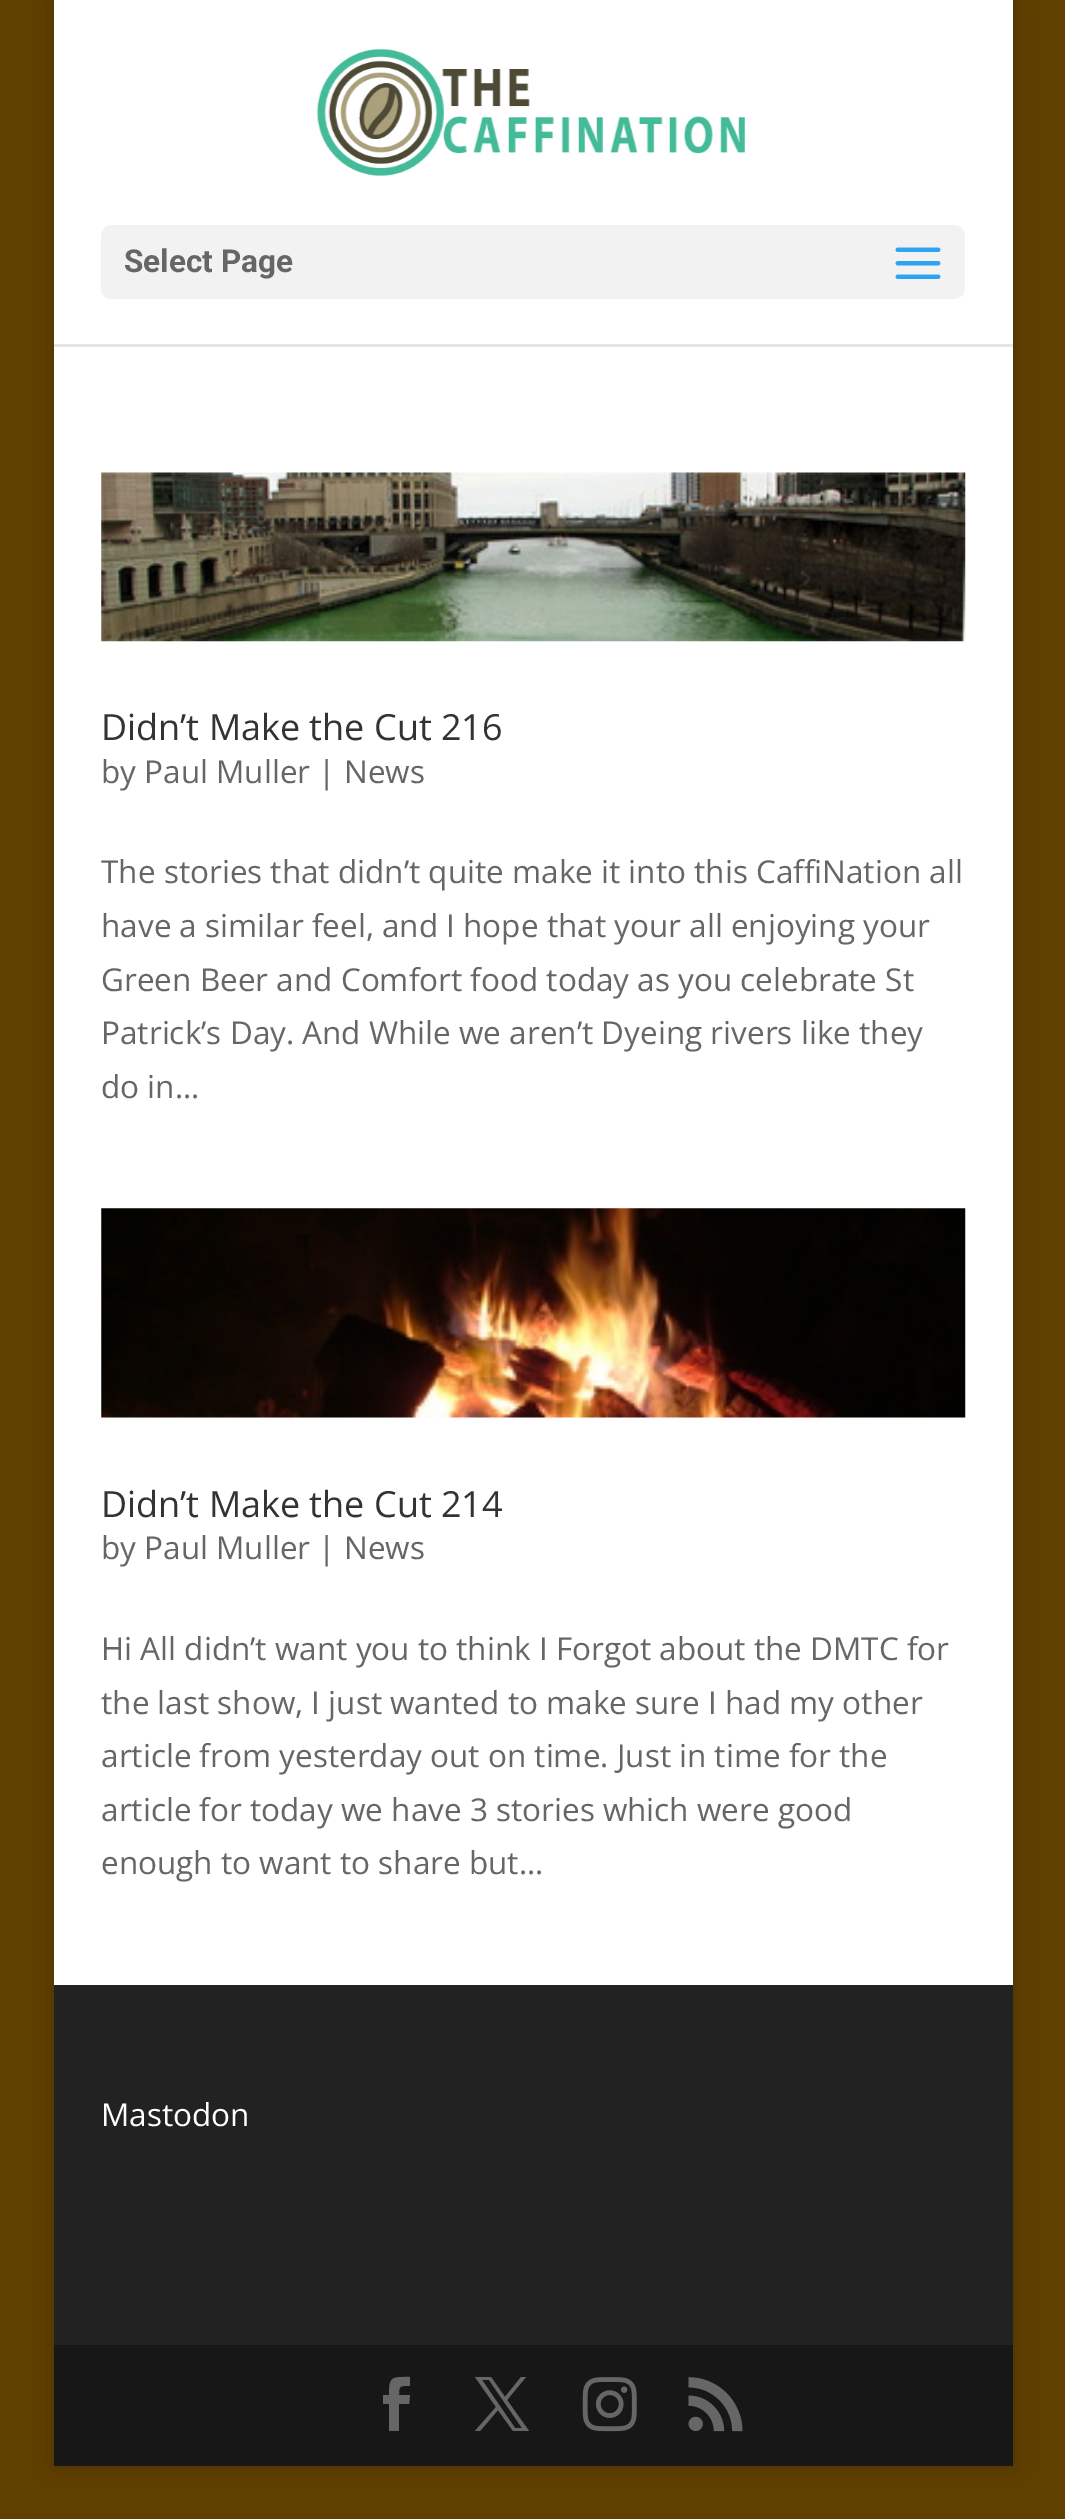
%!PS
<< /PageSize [1065 2519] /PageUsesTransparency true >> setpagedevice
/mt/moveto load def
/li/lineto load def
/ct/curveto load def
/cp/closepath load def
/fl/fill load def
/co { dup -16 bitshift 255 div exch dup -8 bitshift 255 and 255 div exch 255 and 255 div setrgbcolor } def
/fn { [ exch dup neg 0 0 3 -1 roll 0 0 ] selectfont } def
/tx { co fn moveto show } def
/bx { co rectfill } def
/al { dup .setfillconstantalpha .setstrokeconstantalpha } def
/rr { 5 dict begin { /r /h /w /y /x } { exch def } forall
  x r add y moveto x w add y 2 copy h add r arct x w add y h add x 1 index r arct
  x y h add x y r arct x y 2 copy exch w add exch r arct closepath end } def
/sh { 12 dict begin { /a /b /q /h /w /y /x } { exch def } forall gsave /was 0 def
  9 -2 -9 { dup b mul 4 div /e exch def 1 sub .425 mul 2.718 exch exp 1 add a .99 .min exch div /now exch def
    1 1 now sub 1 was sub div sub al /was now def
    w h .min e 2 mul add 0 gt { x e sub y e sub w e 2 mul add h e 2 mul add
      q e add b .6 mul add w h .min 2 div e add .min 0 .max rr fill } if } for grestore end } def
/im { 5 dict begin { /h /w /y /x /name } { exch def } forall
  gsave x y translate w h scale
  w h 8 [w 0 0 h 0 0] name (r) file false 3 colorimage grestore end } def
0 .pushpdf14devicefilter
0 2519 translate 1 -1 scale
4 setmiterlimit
0 0 1065 2519 16#604000 bx
16#000000 co
54 0 959 2466 0 11 .2 sh
54 344 959 1641 16#FFFFFF bx
0.1 al
16#000000 co
54 344 mt 54 347 li 1013 347 li 1013 2 li 1012 2 li 1012 344 li cp fl
1 al
54 0 959 344 16#FFFFFF bx
(media/1.raw) 316 48 429 128 im
16#F2F2F2 co
101 225 864 74 11 rr fl
(media/2.raw) 895 247 46 32 im
(media/3.raw) 101 472 865 170 im
(media/4.raw) 101 1208 865 210 im
54 1985 959 360 16#222222 bx
54 2345 959 121 16#171717 bx
16#666666 co
389 2431 mt 399 2431 li 399 2404 li 409 2404 li 410 2395 li 399 2395 li 399 2385 400 2386 410 2386 ct 410 2377 li 392 2377 389 2376 389 2395 ct 383 2395 li 383 2404 li 389 2404 li cp fl
475 2377 mt 496 2407 li 475 2431 li 480 2431 li 498 2410 li 513 2431 li 529 2431 li 507 2400 li 526 2377 li 521 2377 li 505 2397 li 491 2377 li cp 482 2380 mt 489 2380 li 522 2428 li 515 2428 li cp fl
(media/5.raw) 582 2377 55 55 im
(media/6.raw) 688 2377 55 55 im
(Select Page) 124 272 /Roboto-Bold 31.5 16#666666 tx
(Didn’t Make the Cut 216) 101 740 /OpenSans-Regular 36 16#333333 tx
(by Paul Muller | News) 101 783 /OpenSans-Regular 31.5 16#666666 tx
(The stories that didn’t quite make it into this CaffiNation all) 101 883 /OpenSans-Regular 31.5 16#666666 tx
(have a similar feel, and I hope that your all enjoying your) 101 937 /OpenSans-Regular 31.5 16#666666 tx
(Green Beer and Comfort food today as you celebrate St) 101 991 /OpenSans-Regular 31.5 16#666666 tx
(Patrick’s Day. And While we aren’t Dyeing rivers like they) 101 1044 /OpenSans-Regular 31.5 16#666666 tx
(do in...) 101 1098 /OpenSans-Regular 31.5 16#666666 tx
(Didn’t Make the Cut 214) 101 1517 /OpenSans-Regular 36 16#333333 tx
(by Paul Muller | News) 101 1559 /OpenSans-Regular 31.5 16#666666 tx
(Hi All didn’t want you to think I Forgot about the DMTC for) 101 1660 /OpenSans-Regular 31.5 16#666666 tx
(the last show, I just wanted to make sure I had my other) 101 1714 /OpenSans-Regular 31.5 16#666666 tx
(article from yesterday out on time. Just in time for the) 101 1767 /OpenSans-Regular 31.5 16#666666 tx
(article for today we have 3 stories which were good) 101 1821 /OpenSans-Regular 31.5 16#666666 tx
(enough to want to share but...) 101 1874 /OpenSans-Regular 31.5 16#666666 tx
(Mastodon) 101 2126 /OpenSans-Regular 31.5 16#FFFFFF tx
.poppdf14devicefilter showpage
